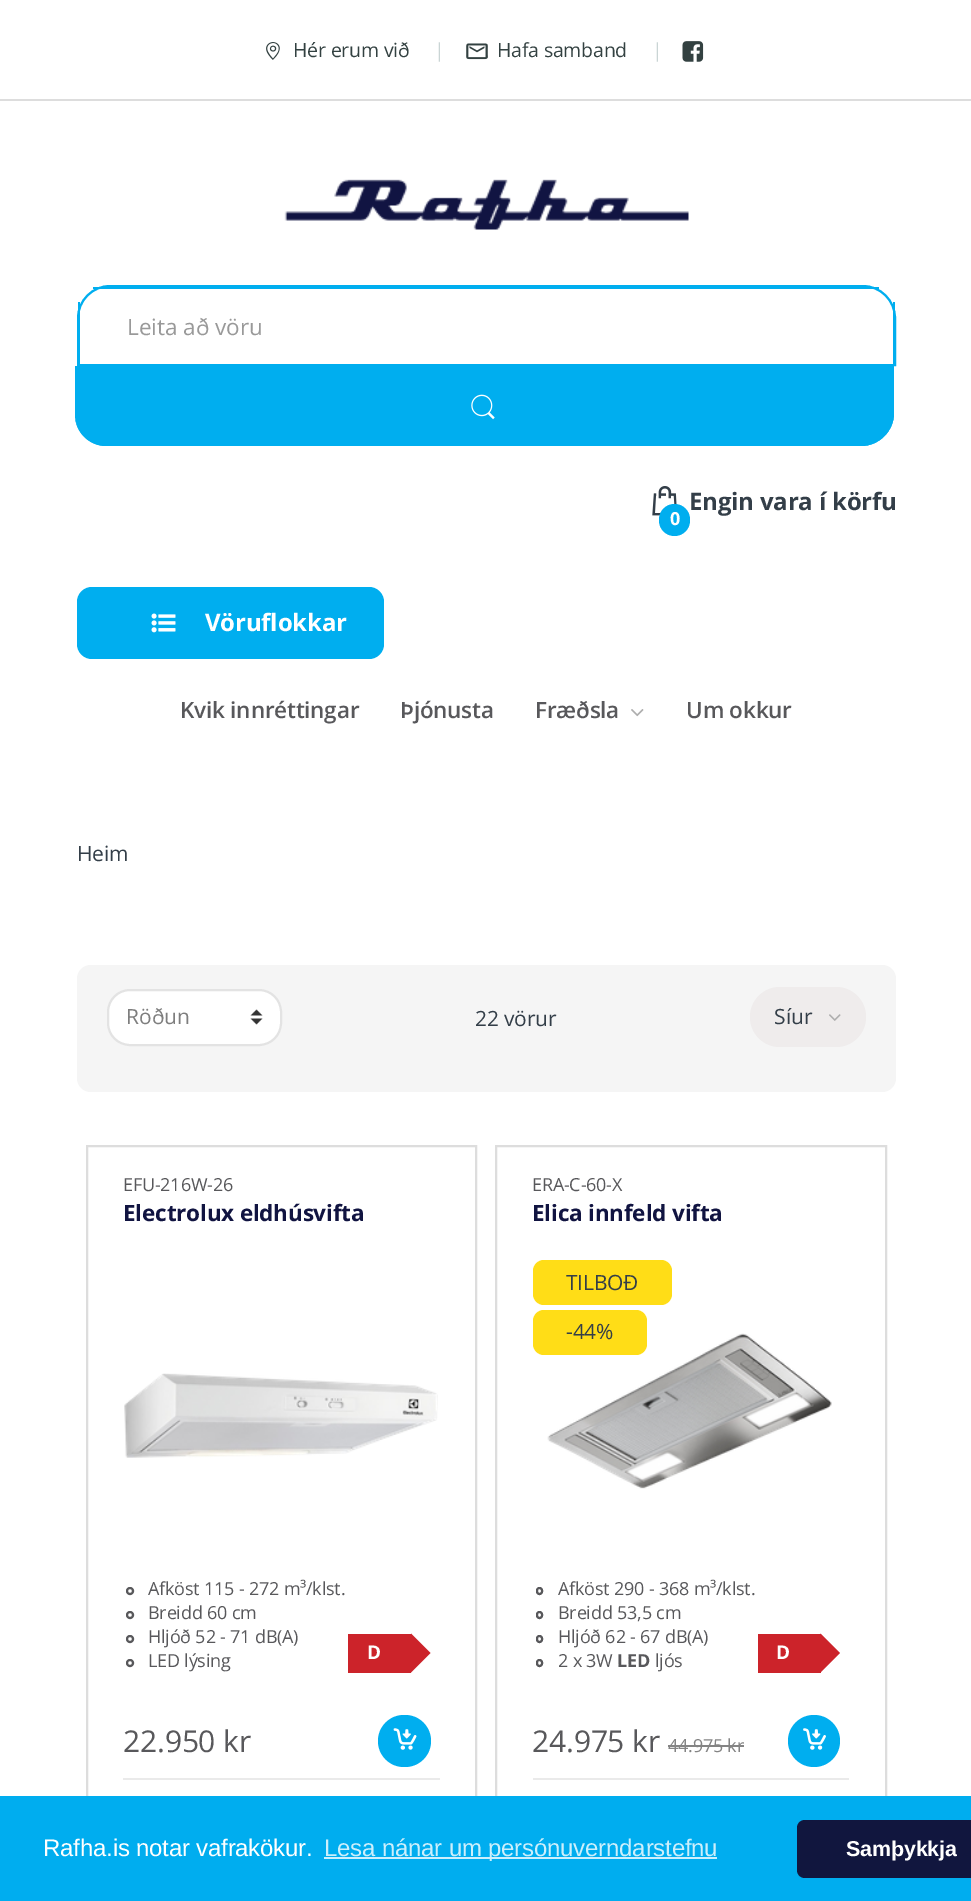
%!PS
<< /PageSize [971 1901] >> setpagedevice
/mt/moveto load def
/li/lineto load def
/ct/curveto load def
/cp/closepath load def
/fl/fill load def
/st/stroke load def
/lw/setlinewidth load def
/co { dup -16 bitshift 255 div exch dup -8 bitshift 255 and 255 div exch 255 and 255 div setrgbcolor } def
/fn { [ exch dup neg 0 0 3 -1 roll 0 0 ] selectfont } def
/tx { co fn moveto show } def
/bx { co rectfill } def
/ci { newpath 0 360 arc closepath } def
/rr { 5 dict begin { /r /h /w /y /x } { exch def } forall
  x r add y moveto x w add y 2 copy h add r arct x w add y h add x 1 index r arct
  x y h add x y r arct x y 2 copy exch w add exch r arct closepath end } def
/im { 5 dict begin { /h /w /y /x /name } { exch def } forall
  gsave x y translate w h scale
  w h 8 [w 0 0 h 0 0] name (r) file false 3 colorimage grestore end } def
0 1901 translate 1 -1 scale
4 setmiterlimit
0 0 971 1901 16#FFFFFF bx
0 99 971 2 16#DDDDDD bx
(media/1.raw) 266 42 14 18 im
(media/2.raw) 466 43 22 17 im
(media/3.raw) 682 41 22 21 im
(media/4.raw) 284 179 405 51 im
16#00AEEF co
2 lw
110 286 mt 863 286 li 880.5 286 895 300.5 895 318 ct 895 365 li 78 365 li 78 318 li 78 300.5 92.5 286 110 286 ct cp st
93 287 786 2 16#00AEEF bx
893 302 2 64 16#00AEEF bx
78 302 2 64 16#00AEEF bx
75 366 mt 894 366 li 894 413 li 894 431 879 446 861 446 ct 107 446 li 89.5 446 75 431.5 75 414 ct cp fl
75 366 mt 894 366 li 894 413 li 894 431 879 446 861 446 ct 106 446 li 89 446 75 432 75 415 ct cp 75 369 mt 891 369 li 891 413 li 891 429 878 442 861 442 ct 106 442 li 89 442 75 430 75 415 ct cp eofill
(media/5.raw) 471 394 24 26 im
(media/6.raw) 652 486 25 30 im
659 504 31 32 15.5 rr fl
77 587 307 72 15 rr fl
(media/7.raw) 151 613 25 20 im
(media/8.raw) 631 709 13 8 im
16#F5F5F5 co
77 965 819 127 14 rr fl
16#FFFFFF co
107 989 175 57 23 rr fl
(media/9.raw) 250 1009 13 16 im
16#E3E3E3 co
108 990 173 55 22 rr st
16#EFECEC co
750 987 116 60 30 rr fl
(media/10.raw) 829 1014 12 7 im
16#DDDDDD co
87 1146 389 685 rectstroke
(media/11.raw) 124 1373 314 85 im
16#58585B co
130 1591 3 ci st
130 1615 3 ci st
130 1639 3 ci st
130 1663 3 ci st
348 1634 63 39 16#CC232A bx
411 1672.5 mt 411 1633.5 li 430.5 1653 li cp fl
16#00AEEF co
378 1715 53 52 26 rr fl
(media/12.raw) 393 1728 24 22 im
123 1778 317 2 16#EAEAEA bx
16#DDDDDD co
496 1146 390 685 rectstroke
16#FFDD17 co
533 1260 139 45 11 rr fl
(media/13.raw) 547 1333 285 156 im
533 1310 114 45 11 rr fl
16#58585B co
537 1588 5 6 2.5 rr st
537 1612 5 6 2.5 rr st
537 1636 5 6 2.5 rr st
537 1660 5 6 2.5 rr st
758 1634 63 39 16#CC232A bx
820.5 1672.5 mt 820.5 1633.5 li 840 1653 li cp fl
668 1745 76 2 16#848484 bx
16#00AEEF co
814 1741 26 ci fl
(media/14.raw) 803 1728 23 22 im
533 1778 316 2 16#EAEAEA bx
0 1796 971 105 16#00ADEF bx
324 1857 393 2 16#CCEFFC bx
16#11163E co
805 1820 mt 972 1820 li 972 1878 li 805 1878 li 800.5 1878 797 1874.5 797 1870 ct 797 1828 li 797 1823.5 800.5 1820 805 1820 ct cp fl
/OpenSans-Regular 19.5 fn
16#334141 co
293 57 mt -.2 0 (Hér erum við) ashow
16#CAD5D5 co
434 57 mt -.2 0 (|) ashow
16#334141 co
497 57 mt -.2 0 (Hafa samband) ashow
16#CAD5D5 co
652 57 mt -.2 0 (|) ashow
(Leita að vöru) 127 335 /OpenSans-Regular 22.5 16#999999 tx
/OpenSans-Bold 24 fn
16#333E48 co
689 510 mt -.2 0 (Engin vara í körfu) ashow
/OpenSans-Bold 18 fn
16#FFFFFF co
670 525 mt -.2 0 (0) ashow
/OpenSans-Bold 24 fn
205 631 mt -.2 0 (Vöruflokkar) ashow
/OpenSans-SemiBold 22.5 fn
16#58585B co
180 718 mt -.2 0 (Kvik innréttingar) ashow
400 718 mt -.2 0 (Þjónusta) ashow
535 718 mt -.2 0 (Fræðsla) ashow
686 718 mt -.2 0 (Um okkur) ashow
/OpenSans-Regular 21 fn
16#333E48 co
77 861 mt -.2 0 (Heim) ashow
(Röðun) 126 1024 /OpenSans-Regular 21 16#7E7E7E tx
16#333E48 co
475 1026 mt -.2 0 (22 vörur) ashow
(Síur) 774 1024 /OpenSans-Regular 21 16#333E48 tx
/OpenSans-Regular 18 fn
16#58585B co
123 1191 mt -.2 0 (EFU-216W-26) ashow
/OpenSans-Bold 22.5 fn
16#111441 co
123 1221 mt -.2 0 (Electrolux eldhúsvifta) ashow
/OpenSans-Regular 18 fn
16#58585B co
148 1595 mt -.2 0 (Afköst 115 - 272 m³/klst.) ashow
148 1619 mt -.2 0 (Breidd 60 cm) ashow
148 1643 mt -.2 0 (Hljóð 52 - 71 dB\(A\)) ashow
148 1667 mt -.2 0 (LED lýsing) ashow
/OpenSans-Bold 19 fn
16#FFFFFF co
367 1659 mt -.2 0 (D) ashow
/OpenSans-Regular 30 fn
16#58585B co
123 1752 mt -.2 0 (22.950 kr) ashow
/OpenSans-Regular 18 fn
532 1191 mt -.2 0 (ERA-C-60-X) ashow
/OpenSans-Bold 22.5 fn
16#111441 co
532 1221 mt -.2 0 (Elica innfeld vifta) ashow
/OpenSans-Regular 21 fn
16#333E48 co
566 1290 mt -.2 0 (TILBOÐ) ashow
566 1339 mt -.2 0 (-44%) ashow
/OpenSans-Regular 18 fn
16#58585B co
558 1595 mt -.2 0 (Afköst 290 - 368 m³/klst.) ashow
558 1619 mt -.2 0 (Breidd 53,5 cm) ashow
558 1643 mt -.2 0 (Hljóð 62 - 67 dB\(A\)) ashow
558 1667 mt -.2 0 (2 x 3W) ashow
/OpenSans-Bold 18 fn
617 1667 mt -.2 0 (LED) ashow
/OpenSans-Regular 18 fn
655 1667 mt -.2 0 (ljós) ashow
/OpenSans-Bold 19 fn
16#FFFFFF co
776 1659 mt -.2 0 (D) ashow
/OpenSans-Regular 30 fn
16#58585B co
532 1752 mt -.2 0 (24.975 kr) ashow
/OpenSans-Regular 18 fn
16#848484 co
668 1752 mt -.2 0 (44.975 kr) ashow
/LiberationSans-Regular 24 fn
16#FFFFFF co
43 1856 mt -.2 0 (Rafha.is notar vafrakökur.) ashow
16#CCEFFC co
324 1856 mt -.2 0 (Lesa nánar um persónuverndarstefnu) ashow
/LiberationSans-Bold 21.5 fn
16#FFFFFF co
846 1856 mt -.2 0 (Samþykkja) ashow
showpage
